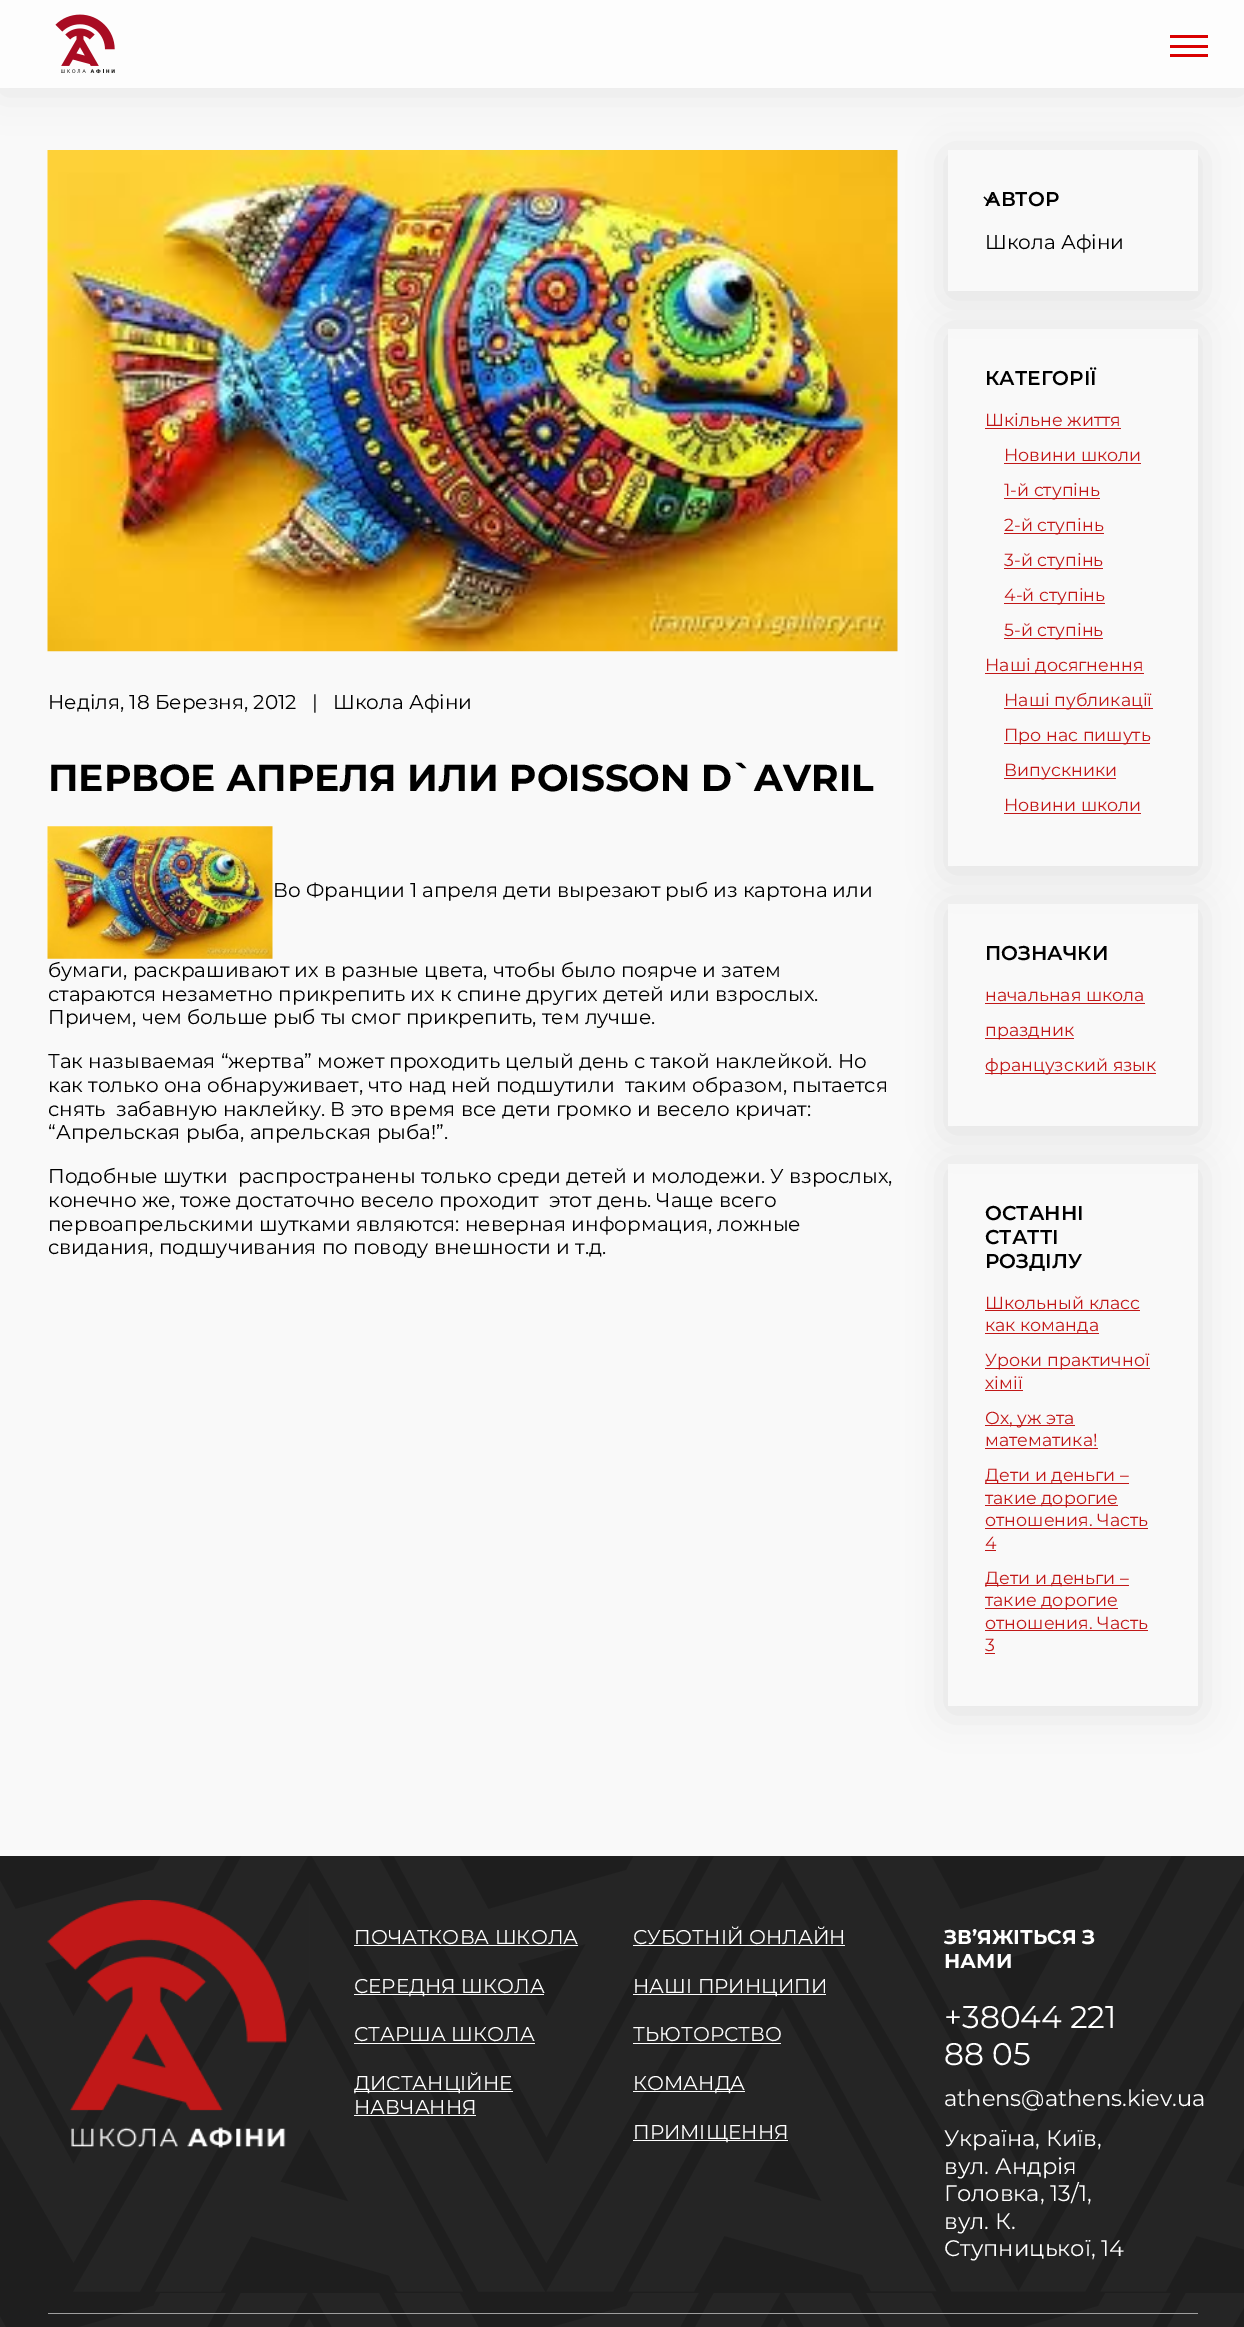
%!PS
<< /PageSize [1244 2327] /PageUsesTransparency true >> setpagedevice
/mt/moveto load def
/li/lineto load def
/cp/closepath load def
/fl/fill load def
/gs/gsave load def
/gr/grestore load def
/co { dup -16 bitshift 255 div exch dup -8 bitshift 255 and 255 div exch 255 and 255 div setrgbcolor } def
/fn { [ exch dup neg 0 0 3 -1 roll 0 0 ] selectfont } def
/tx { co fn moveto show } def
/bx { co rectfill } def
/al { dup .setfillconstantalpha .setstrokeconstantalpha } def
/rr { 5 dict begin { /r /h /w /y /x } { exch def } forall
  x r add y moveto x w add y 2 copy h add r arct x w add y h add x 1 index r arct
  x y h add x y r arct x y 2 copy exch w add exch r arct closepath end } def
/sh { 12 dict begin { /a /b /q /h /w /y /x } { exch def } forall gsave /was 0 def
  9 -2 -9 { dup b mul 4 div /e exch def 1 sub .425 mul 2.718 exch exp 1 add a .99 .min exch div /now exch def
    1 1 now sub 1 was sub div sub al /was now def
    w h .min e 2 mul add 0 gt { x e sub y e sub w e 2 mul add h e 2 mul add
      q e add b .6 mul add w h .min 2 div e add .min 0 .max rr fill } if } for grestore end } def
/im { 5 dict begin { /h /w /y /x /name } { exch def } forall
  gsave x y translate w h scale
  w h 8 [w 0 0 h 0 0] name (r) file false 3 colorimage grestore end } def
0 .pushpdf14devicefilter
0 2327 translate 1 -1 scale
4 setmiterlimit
0 0 1244 2327 16#F9F9F9 bx
(media/2.raw) 47 150 851 502 im
16#000000 co
0 5 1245 88 0 19 .07 sh
0 0 1244 88 16#FDFDFD bx
(media/1.raw) 55 14 60 60 im
1170 35 38 3 16#DA0000 bx
1170 45 38 3 16#DA0000 bx
1170 54 38 3 16#DA0000 bx
(media/3.raw) 47 826 226 133 im
gs
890 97 mt 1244 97 li 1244 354 li 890 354 li cp 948 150 mt 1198 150 li 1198 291 li 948 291 li cp eoclip newpath
16#000000 co
948 155 250 141 0 19 .1 sh
gr
gs
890 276 mt 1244 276 li 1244 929 li 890 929 li cp 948 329 mt 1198 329 li 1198 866 li 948 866 li cp eoclip newpath
16#000000 co
948 334 250 537 0 19 .1 sh
gr
985 428 136 1 16#C11818 bx
1004 463 137 1 16#C11818 bx
1004 498 96 1 16#C11818 bx
1004 533 100 1 16#C11818 bx
1004 568 99 1 16#C11818 bx
1004 603 101 1 16#C11818 bx
1004 638 99 1 16#C11818 bx
16#000000 co
994 197.5 mt 989 203 li 988 202 li 993 196.5 li cp fl
989.5 202 mt 989 203 li 983.5 197.5 li 984.5 196.5 li cp fl
985 673 159 1 16#C11818 bx
1004 708 149 1 16#C11818 bx
1004 743 146 1 16#C11818 bx
1004 778 112 1 16#C11818 bx
1004 813 137 1 16#C11818 bx
gs
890 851 mt 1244 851 li 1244 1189 li 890 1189 li cp 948 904 mt 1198 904 li 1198 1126 li 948 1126 li cp eoclip newpath
16#000000 co
948 909 250 222 0 19 .1 sh
gr
985 1003 160 1 16#C11818 bx
985 1038 89 1 16#C11818 bx
985 1073 171 1 16#C11818 bx
gs
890 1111 mt 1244 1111 li 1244 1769 li 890 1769 li cp 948 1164 mt 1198 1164 li 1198 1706 li 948 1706 li cp eoclip newpath
16#000000 co
948 1169 250 542 0 19 .1 sh
gr
985 1310 155 1 16#C11818 bx
985 1333 114 1 16#C11818 bx
985 1368 165 1 16#C11818 bx
985 1390 38 1 16#C11818 bx
985 1425 90 1 16#C11818 bx
985 1448 113 1 16#C11818 bx
985 1483 144 1 16#C11818 bx
985 1505 133 1 16#C11818 bx
985 1528 163 1 16#C11818 bx
985 1550 11 1 16#C11818 bx
985 1585 144 1 16#C11818 bx
985 1608 133 1 16#C11818 bx
985 1630 163 1 16#C11818 bx
985 1653 10 1 16#C11818 bx
0 1856 1244 471 16#1E1E1E bx
(media/4.raw) 0 1856 1244 471 im
(media/5.raw) 47 1900 240 248 im
354 1945 224 1 16#FFFFFF bx
633 1945 212 1 16#FFFFFF bx
354 1994 190 1 16#FFFFFF bx
633 1994 193 1 16#FFFFFF bx
354 2043 181 1 16#FFFFFF bx
633 2043 148 1 16#FFFFFF bx
354 2091 159 1 16#FFFFFF bx
354 2115 122 1 16#FFFFFF bx
633 2091 112 1 16#FFFFFF bx
633 2140 155 1 16#FFFFFF bx
48 2313 1150 1 16#9F9F9F bx
(Неділя, 18 Березня, 2012) 48 709 /Montserrat-Regular 20 16#000000 tx
(|) 312 709 /Montserrat-Regular 20 16#000000 tx
(Школа Афіни) 333 709 /Montserrat-Regular 20 16#000000 tx
(ПЕРВОЕ АПРЕЛЯ ИЛИ POISSON D`AVRIL) 48 791 /Montserrat-Bold 37.5 16#000000 tx
(Во Франции 1 апреля дети вырезают рыб из картона или) 273 897 /Montserrat-Regular 20 16#000000 tx
(бумаги, раскрашивают их в разные цвета, чтобы было поярче и затем) 48 977 /Montserrat-Regular 20 16#000000 tx
(стараются незаметно прикрепить их к спине других детей или взрослых.) 48 1001 /Montserrat-Regular 20 16#000000 tx
(Причем, чем больше рыб ты смог прикрепить, тем лучше.) 48 1024 /Montserrat-Regular 20 16#000000 tx
(Так называемая “жертва” может проходить целый день с такой наклейкой. Но) 48 1068 /Montserrat-Regular 20 16#000000 tx
(как только она обнаруживает, что над ней подшутили  таким образом, пытается) 48 1092 /Montserrat-Regular 20 16#000000 tx
(снять  забавную наклейку. В это время все дети громко и весело кричат:) 48 1116 /Montserrat-Regular 20 16#000000 tx
(“Апрельская рыба, апрельская рыба!”.) 48 1139 /Montserrat-Regular 20 16#000000 tx
(Подобные шутки  распространены только среди детей и молодежи. У взрослых,) 48 1183 /Montserrat-Regular 20 16#000000 tx
(конечно же, тоже достаточно весело проходит  этот день. Чаще всего) 48 1207 /Montserrat-Regular 20 16#000000 tx
(первоапрельскими шутками являются: неверная информация, ложные) 48 1231 /Montserrat-Regular 20 16#000000 tx
(свидания, подшучивания по поводу внешности и т.д.) 48 1254 /Montserrat-Regular 20 16#000000 tx
(АВТОР) 985 206 /Montserrat-SemiBold 20 16#000000 tx
(Школа Афіни) 985 249 /Montserrat-Regular 20 16#000000 tx
(КАТЕГОРІЇ) 985 385 /Montserrat-SemiBold 20 16#000000 tx
(Шкільне життя) 985 426 /Montserrat-Regular 17.5 16#C11818 tx
(Новини школи) 1004 461 /Montserrat-Regular 17.5 16#C11818 tx
(1-й ступінь) 1004 496 /Montserrat-Regular 17.5 16#C11818 tx
(2-й ступінь) 1004 531 /Montserrat-Regular 17.5 16#C11818 tx
(3-й ступінь) 1004 566 /Montserrat-Regular 17.5 16#C11818 tx
(4-й ступінь) 1004 601 /Montserrat-Regular 17.5 16#C11818 tx
(5-й ступінь) 1004 636 /Montserrat-Regular 17.5 16#C11818 tx
(Наші досягнення) 985 671 /Montserrat-Regular 17.5 16#C11818 tx
(Наші публикації) 1004 706 /Montserrat-Regular 17.5 16#C11818 tx
(Про нас пишуть) 1004 741 /Montserrat-Regular 17.5 16#C11818 tx
(Випускники) 1004 776 /Montserrat-Regular 17.5 16#C11818 tx
(Новини школи) 1004 811 /Montserrat-Regular 17.5 16#C11818 tx
(ПОЗНАЧКИ) 985 960 /Montserrat-SemiBold 20 16#000000 tx
(начальная школа) 985 1001 /Montserrat-Regular 17.5 16#C11818 tx
(праздник) 985 1036 /Montserrat-Regular 17.5 16#C11818 tx
(французский язык) 985 1071 /Montserrat-Regular 17.5 16#C11818 tx
(ОСТАННІ) 985 1220 /Montserrat-SemiBold 20 16#000000 tx
(СТАТТІ) 985 1244 /Montserrat-SemiBold 20 16#000000 tx
(РОЗДІЛУ) 985 1268 /Montserrat-SemiBold 20 16#000000 tx
(Школьный класс) 985 1309 /Montserrat-Regular 17.5 16#C11818 tx
(как команда) 985 1331 /Montserrat-Regular 17.5 16#C11818 tx
(Уроки практичної) 985 1366 /Montserrat-Regular 17.5 16#C11818 tx
(хімії) 985 1389 /Montserrat-Regular 17.5 16#C11818 tx
(Ох, уж эта) 985 1424 /Montserrat-Regular 17.5 16#C11818 tx
(математика!) 985 1446 /Montserrat-Regular 17.5 16#C11818 tx
(Дети и деньги –) 985 1481 /Montserrat-Regular 17.5 16#C11818 tx
(такие дорогие) 985 1504 /Montserrat-Regular 17.5 16#C11818 tx
(отношения. Часть) 985 1526 /Montserrat-Regular 17.5 16#C11818 tx
(4) 985 1549 /Montserrat-Regular 17.5 16#C11818 tx
(Дети и деньги –) 985 1584 /Montserrat-Regular 17.5 16#C11818 tx
(такие дорогие) 985 1606 /Montserrat-Regular 17.5 16#C11818 tx
(отношения. Часть) 985 1629 /Montserrat-Regular 17.5 16#C11818 tx
(3) 985 1651 /Montserrat-Regular 17.5 16#C11818 tx
(ПОЧАТКОВА ШКОЛА) 354 1944 /Montserrat-Regular 20 16#FFFFFF tx
(СУБОТНІЙ ОНЛАЙН) 633 1944 /Montserrat-Regular 20 16#FFFFFF tx
(СЕРЕДНЯ ШКОЛА) 354 1993 /Montserrat-Regular 20 16#FFFFFF tx
(НАШІ ПРИНЦИПИ) 633 1993 /Montserrat-Regular 20 16#FFFFFF tx
(СТАРША ШКОЛА) 354 2041 /Montserrat-Regular 20 16#FFFFFF tx
(ТЬЮТОРСТВО) 633 2041 /Montserrat-Regular 20 16#FFFFFF tx
(ДИСТАНЦІЙНЕ) 354 2090 /Montserrat-Regular 20 16#FFFFFF tx
(НАВЧАННЯ) 354 2114 /Montserrat-Regular 20 16#FFFFFF tx
(КОМАНДА) 633 2090 /Montserrat-Regular 20 16#FFFFFF tx
(ПРИМІЩЕННЯ) 633 2139 /Montserrat-Regular 20 16#FFFFFF tx
(ЗВ’ЯЖІТЬСЯ З) 944 1944 /Montserrat-Bold 20 16#FFFFFF tx
(НАМИ) 944 1968 /Montserrat-Bold 20 16#FFFFFF tx
(+38044 221) 944 2028 /Montserrat-Regular 31.25 16#FFFFFF tx
(88 05) 944 2065 /Montserrat-Regular 31.25 16#FFFFFF tx
(athens@athens.kiev.ua) 944 2106 /Montserrat-Regular 22.5 16#FFFFFF tx
(Україна, Київ,) 944 2146 /Montserrat-Regular 22.5 16#FFFFFF tx
(вул. Андрія) 944 2174 /Montserrat-Regular 22.5 16#FFFFFF tx
(Головка, 13/1,) 944 2201 /Montserrat-Regular 22.5 16#FFFFFF tx
(вул. К.) 944 2229 /Montserrat-Regular 22.5 16#FFFFFF tx
(Ступницької, 14) 944 2256 /Montserrat-Regular 22.5 16#FFFFFF tx
.poppdf14devicefilter showpage
